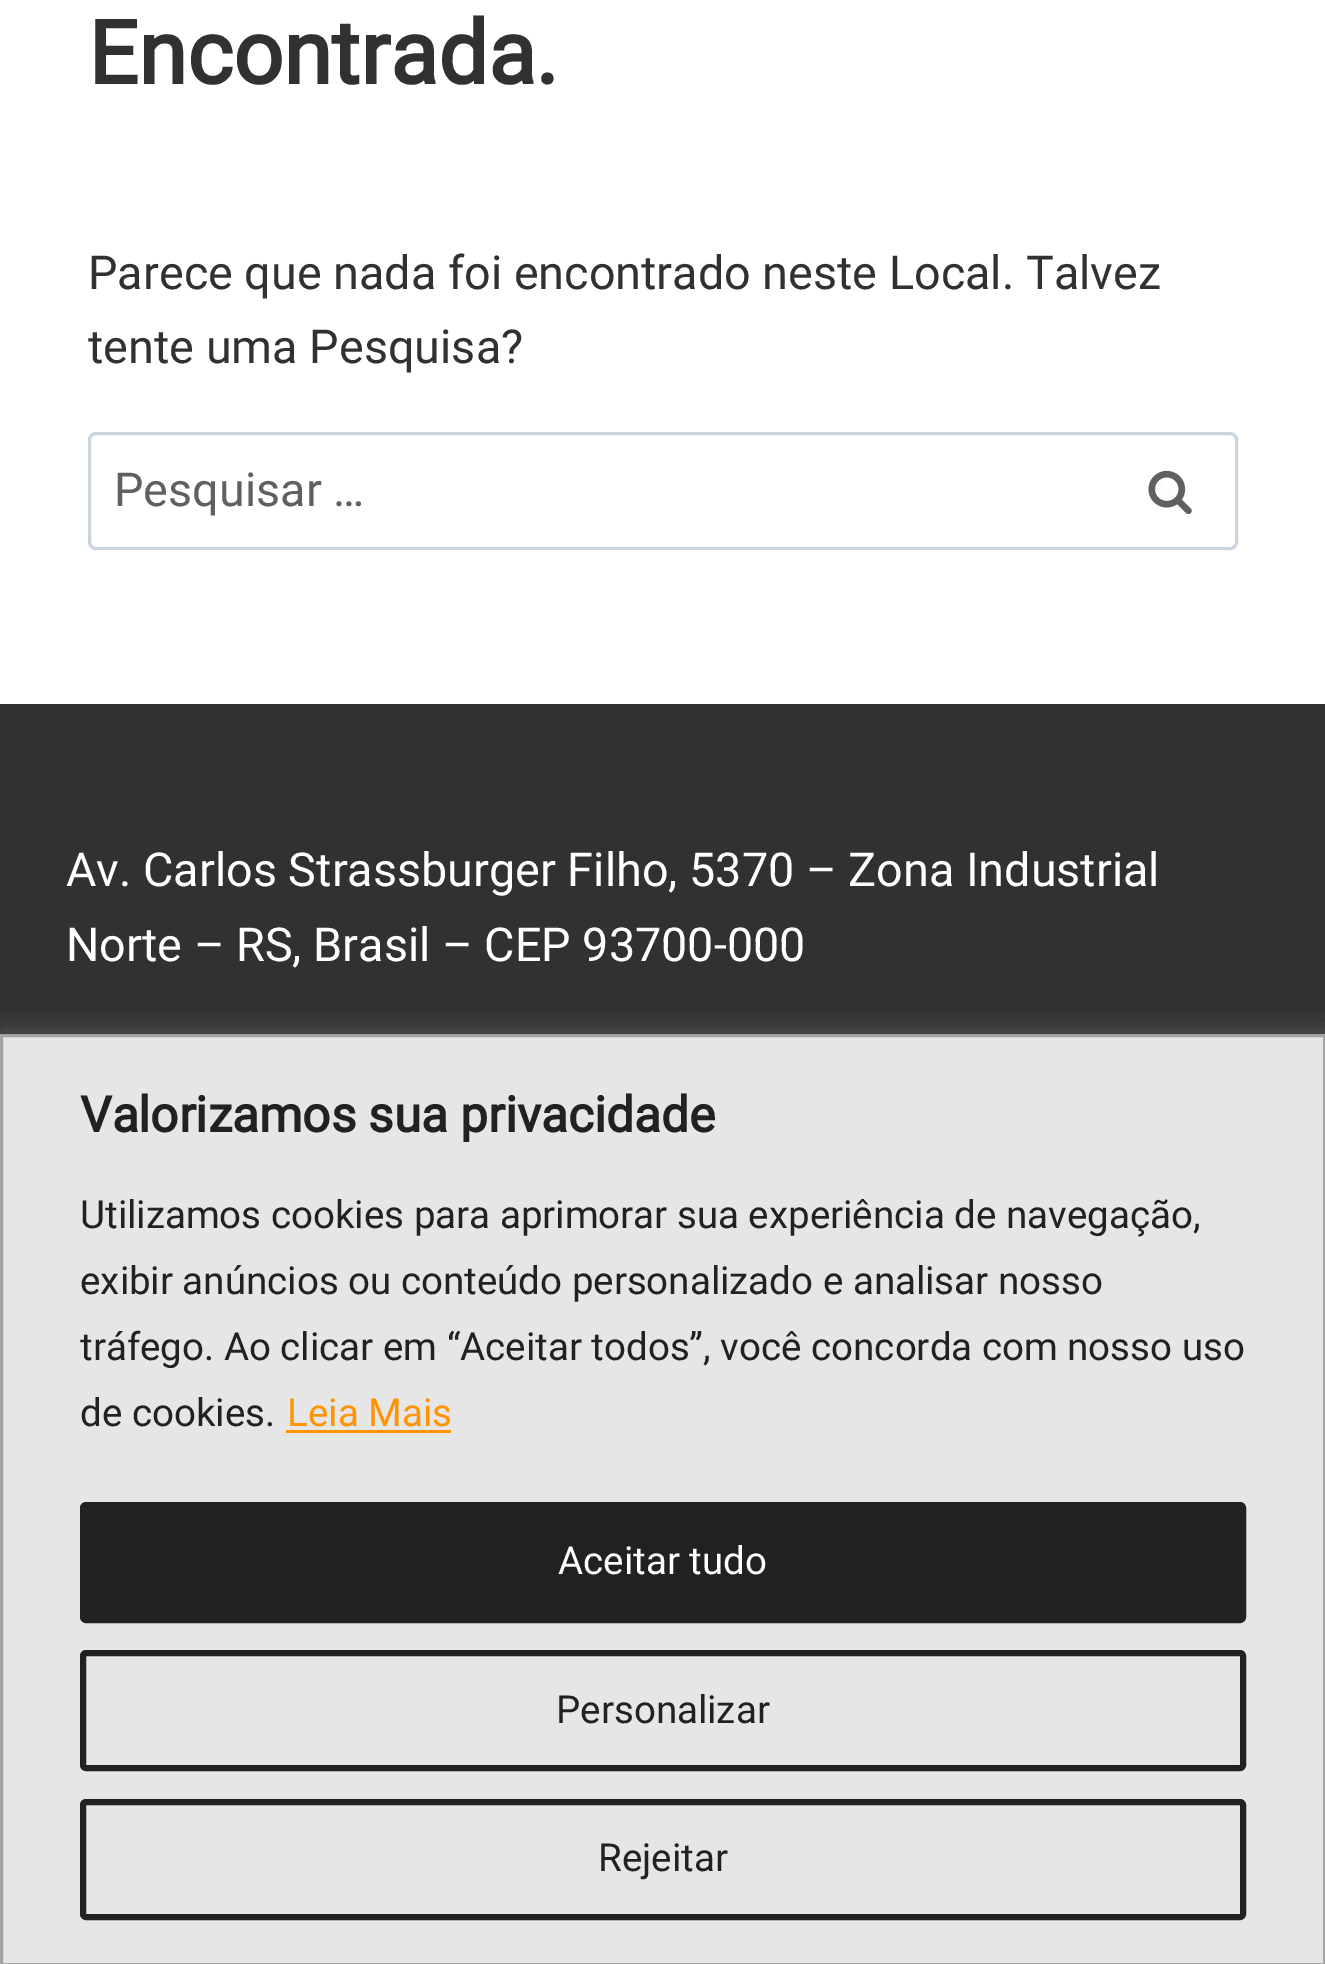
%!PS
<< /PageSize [1325 1964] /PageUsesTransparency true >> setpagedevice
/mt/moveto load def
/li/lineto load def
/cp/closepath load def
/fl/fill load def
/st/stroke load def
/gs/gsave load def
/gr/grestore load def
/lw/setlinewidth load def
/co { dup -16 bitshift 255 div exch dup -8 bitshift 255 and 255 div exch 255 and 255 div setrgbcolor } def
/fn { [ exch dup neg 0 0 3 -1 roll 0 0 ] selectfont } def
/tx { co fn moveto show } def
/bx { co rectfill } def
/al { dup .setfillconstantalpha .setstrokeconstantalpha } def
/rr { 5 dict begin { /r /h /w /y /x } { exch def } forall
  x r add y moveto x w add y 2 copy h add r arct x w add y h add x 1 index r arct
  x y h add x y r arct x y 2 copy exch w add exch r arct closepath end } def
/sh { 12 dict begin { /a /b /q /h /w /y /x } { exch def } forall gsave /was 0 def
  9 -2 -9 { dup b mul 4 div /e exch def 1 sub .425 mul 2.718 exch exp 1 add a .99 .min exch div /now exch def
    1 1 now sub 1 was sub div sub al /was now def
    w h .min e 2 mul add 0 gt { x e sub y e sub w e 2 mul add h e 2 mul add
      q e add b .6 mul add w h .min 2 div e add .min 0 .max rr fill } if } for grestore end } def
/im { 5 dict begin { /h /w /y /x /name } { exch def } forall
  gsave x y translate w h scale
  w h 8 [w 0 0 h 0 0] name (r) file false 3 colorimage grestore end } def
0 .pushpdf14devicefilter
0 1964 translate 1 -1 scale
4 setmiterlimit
0 0 1325 1964 16#FFFFFF bx
16#CBD5E0 co
3 lw
89.5 433.5 1147 115 6.5 rr st
(media/1.raw) 1148 470 44 44 im
0 704 1325 330 16#313131 bx
16#ACABAB co
0 1031 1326 933 0 14 .3 sh
16#E6E6E6 co
1.5 1035.5 mt 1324.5 1035.5 li 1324.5 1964.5 li 1.5 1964.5 li cp gs fl gr
16#A4A4A4 co
st
286 1430 165 3 16#FF9400 bx
16#212121 co
83 1505 1160 115 3 rr gs fl gr
6 lw
st
83 1653 1160 115 3 rr st
83 1802 1160 115 3 rr st
(Encontrada.) 88 84 /Roboto-Bold 88 16#313131 tx
(Parece que nada foi encontrado neste Local. Talvez) 88 289 /Roboto-Regular 46.75 16#313131 tx
(tente uma Pesquisa?) 88 363 /Roboto-Regular 46.75 16#313131 tx
(Pesquisar …) 114 506 /Roboto-Regular 46.75 16#606062 tx
(Av. Carlos Strassburger Filho, 5370 – Zona Industrial) 66 886 /Roboto-Regular 46.75 16#FFFFFF tx
(Norte – RS, Brasil – CEP 93700-000) 66 961 /Roboto-Regular 46.75 16#FFFFFF tx
(Valorizamos sua privacidade) 80 1132 /Roboto-Bold 49.5 16#212121 tx
(Utilizamos cookies para aprimorar sua experiência de navegação,) 80 1228 /Roboto-Regular 38.5 16#212121 tx
(exibir anúncios ou conteúdo personalizado e analisar nosso) 80 1294 /Roboto-Regular 38.5 16#212121 tx
(tráfego. Ao clicar em “Aceitar todos”, você concorda com nosso uso) 80 1360 /Roboto-Regular 38.5 16#212121 tx
(de cookies.) 80 1426 /Roboto-Regular 38.5 16#212121 tx
(Leia Mais) 287 1426 /Roboto-Regular 38.5 16#FF9400 tx
(Aceitar tudo) 558 1574 /Roboto-Regular 38.5 16#FFFFFF tx
(Personalizar) 556 1723 /Roboto-Regular 38.5 16#212121 tx
(Rejeitar) 598 1871 /Roboto-Regular 38.5 16#212121 tx
.poppdf14devicefilter showpage
